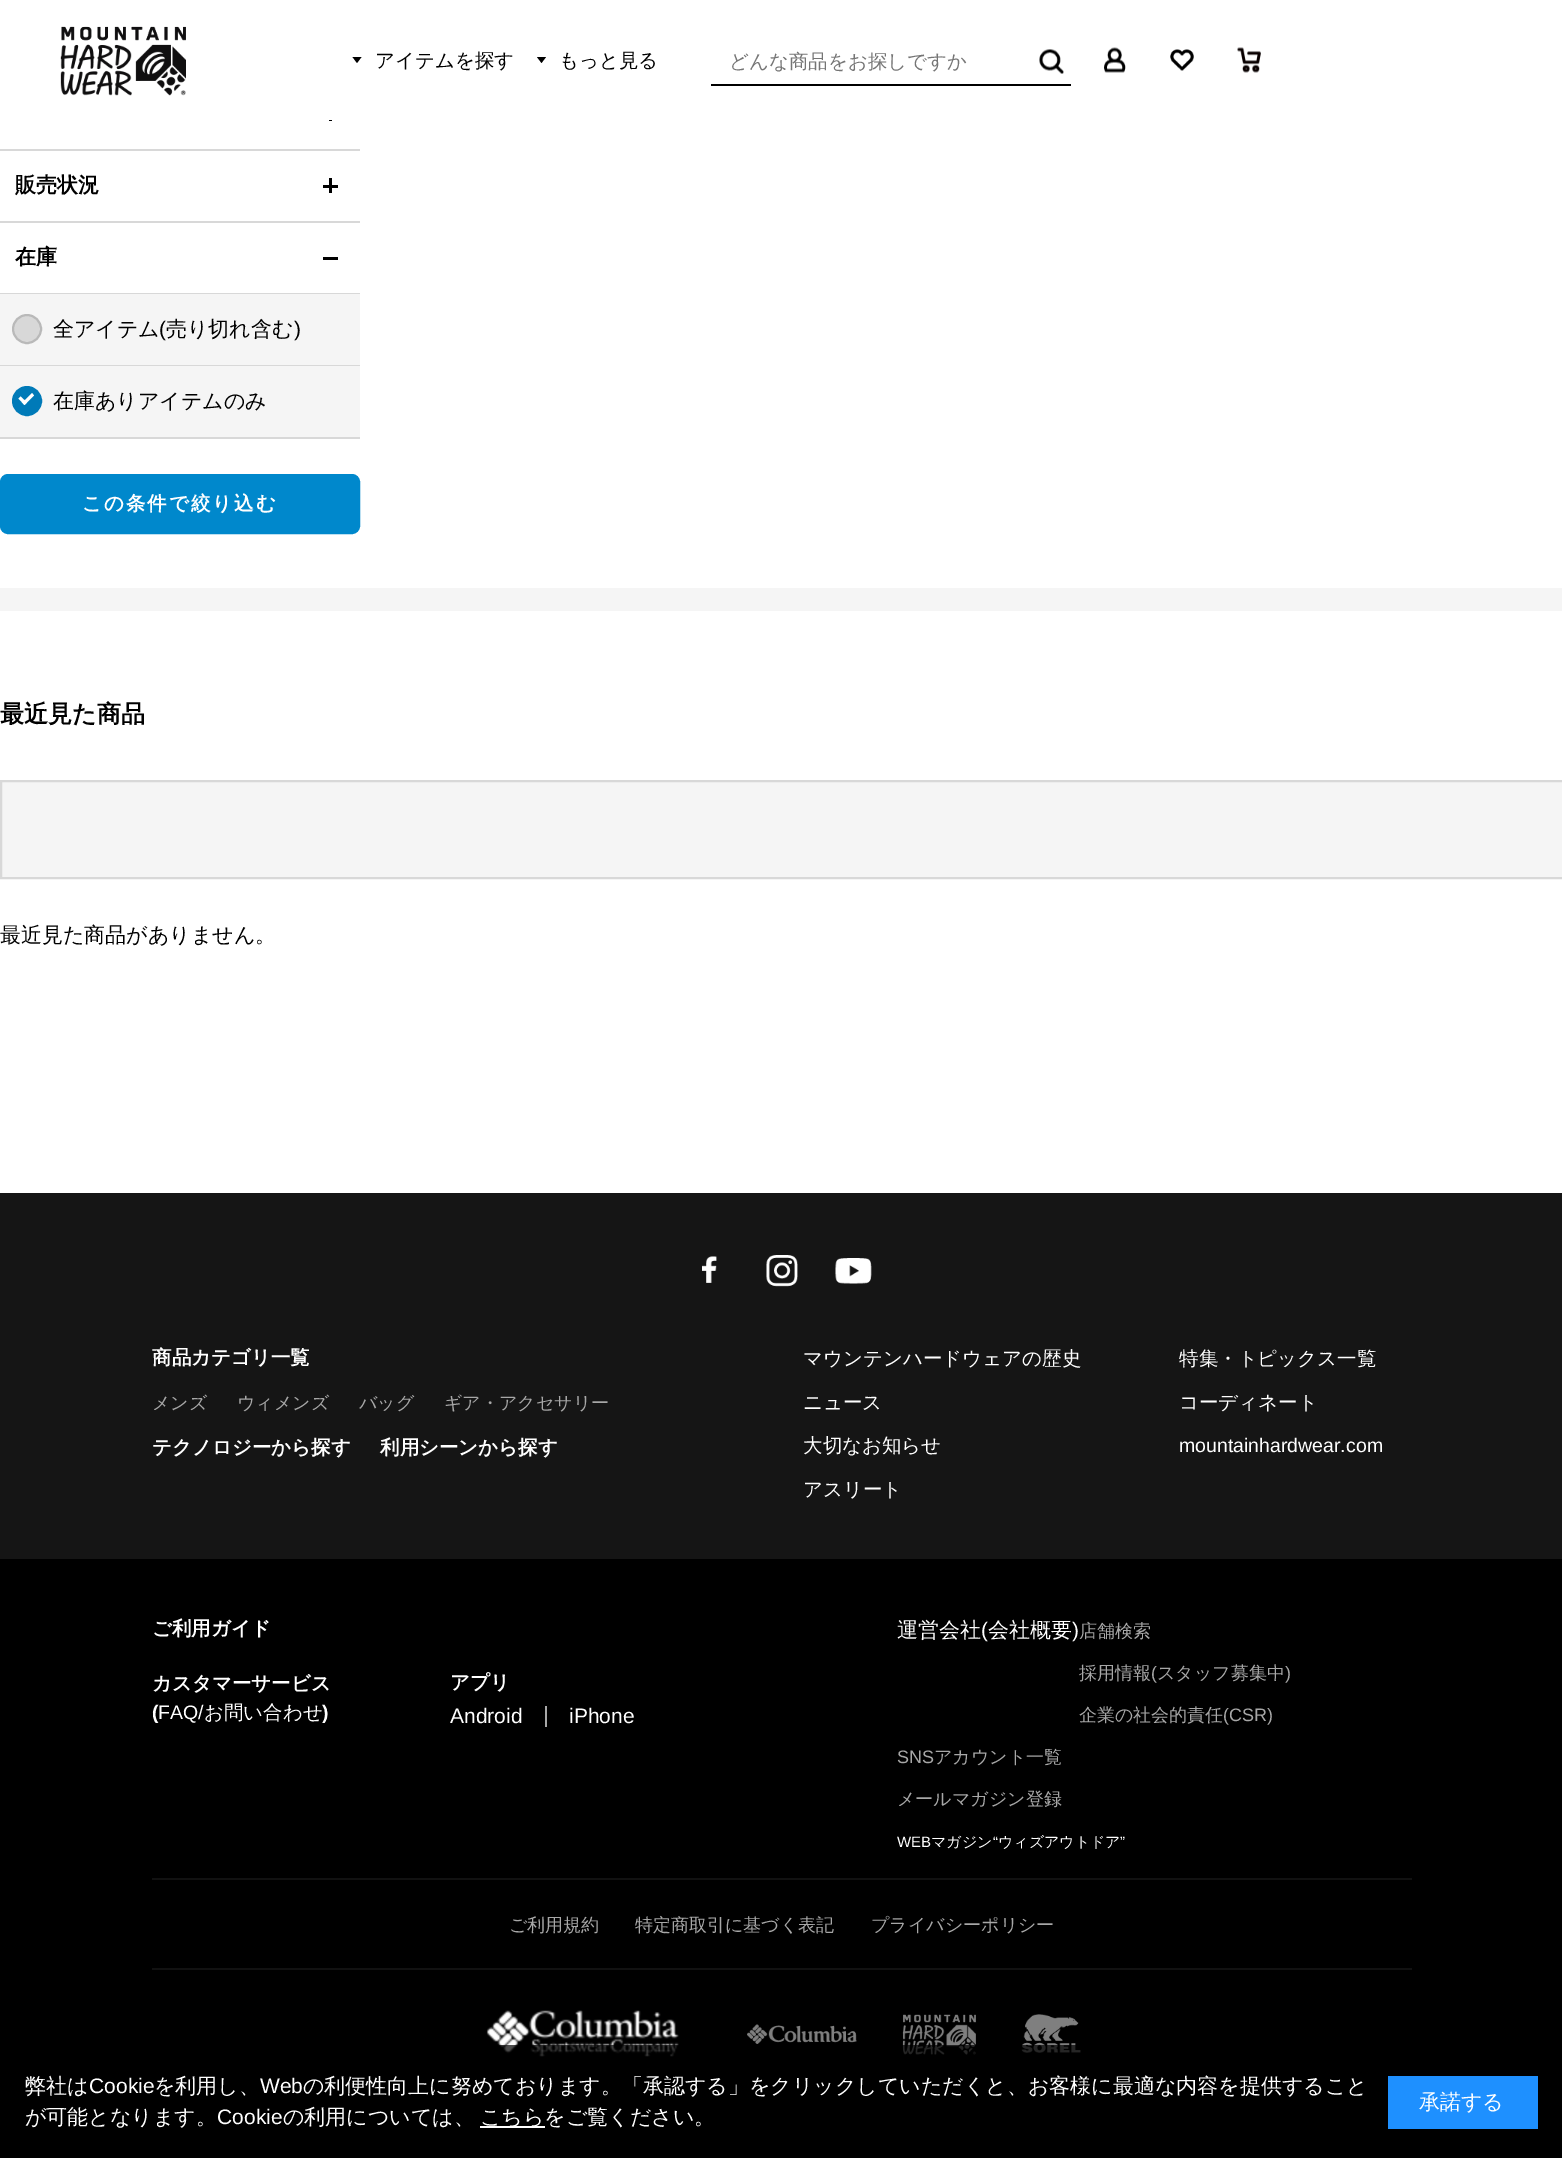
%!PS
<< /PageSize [1562 2158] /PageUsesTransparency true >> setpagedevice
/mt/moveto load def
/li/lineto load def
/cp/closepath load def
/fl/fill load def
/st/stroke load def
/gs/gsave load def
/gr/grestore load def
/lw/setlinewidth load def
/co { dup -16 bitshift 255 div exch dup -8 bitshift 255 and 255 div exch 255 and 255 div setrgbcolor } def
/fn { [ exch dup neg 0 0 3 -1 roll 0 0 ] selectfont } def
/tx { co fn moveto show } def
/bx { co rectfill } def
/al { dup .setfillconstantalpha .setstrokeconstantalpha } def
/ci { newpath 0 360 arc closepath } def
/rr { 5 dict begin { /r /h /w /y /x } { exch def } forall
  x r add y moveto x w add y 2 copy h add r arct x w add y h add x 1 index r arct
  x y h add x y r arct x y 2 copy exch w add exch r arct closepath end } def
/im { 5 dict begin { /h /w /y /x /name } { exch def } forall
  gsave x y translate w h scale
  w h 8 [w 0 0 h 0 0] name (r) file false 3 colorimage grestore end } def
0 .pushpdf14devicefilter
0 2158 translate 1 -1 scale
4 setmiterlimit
0 0 1562 2158 16#FFFFFF bx
(media/1.raw) 60 26 126 70 im
16#000000 co
352.5 57 mt 361.5 57 li 357 63 li cp fl
537 57 mt 546 57 li 541.5 63 li cp fl
711 84 360 2 16#000000 bx
(media/2.raw) 1039 49 25 25 im
(media/3.raw) 1104 47 22 26 im
(media/4.raw) 1170 49 24 22 im
(media/5.raw) 1237 47 24 26 im
0 149 360 2 16#D8D8D8 bx
329 120 3 1 16#000000 bx
0 221 360 2 16#D8D8D8 bx
329 178 3 15 16#000000 bx
323 185 15 3 16#000000 bx
0 293 360 1 16#D8D8D8 bx
323 257 15 3 16#000000 bx
0 294 360 71 16#F5F5F5 bx
0 365 360 1 16#D8D8D8 bx
27 329 14 ci gs fl gr
16#B9B9B9 co
2 lw
st
0 366 360 71 16#F5F5F5 bx
0 437 360 2 16#D8D8D8 bx
16#007AB8 co
27 401 14 ci gs fl gr
st
16#FFFFFF co
22.5 402.5 mt 32 393 li 34 395.5 li 24.5 405 li cp fl
18.5 398.5 mt 20.5 396.5 li 27 402.5 li 24.5 405 li cp fl
16#0088CC co
1 475 358 58 7 rr gs fl gr
st
0 588 1562 23 16#F5F5F5 bx
1 781 mt 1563 781 li 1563 878 li 1 878 li cp gs fl gr
16#D8D8D8 co
st
0 1193 1562 366 16#151515 bx
(media/6.raw) 702 1256 15 27 im
(media/7.raw) 766 1255 32 32 im
(media/8.raw) 835 1258 37 26 im
0 1559 1562 599 16#000000 bx
545 1706 2 21 16#A7A7A7 bx
152 1878 1260 2 16#111111 bx
152 1968 1260 2 16#111111 bx
(media/9.raw) 486 2010 193 47 im
(media/10.raw) 747 2024 110 20 im
(media/11.raw) 902 2014 74 41 im
(media/12.raw) 1021 2014 60 39 im
0.7 al
499 2045 582 12 16#000000 bx
1 al
480 2126 65 2 16#FFFFFF bx
1388 2076 150 53 16#1E90FF bx
(アイテムを探す) 375 67 /WenQuanYiZenHei-Medium 19.5 16#000000 tx
(もっと見る) 559 67 /WenQuanYiZenHei-Medium 19.5 16#000000 tx
(どんな商品をお探しですか) 729 68 /WenQuanYiZenHei-Medium 19.5 16#757575 tx
(販売状況) 15 192 /WenQuanYiZenHei-Bold 21 16#000000 tx
(在庫) 15 264 /WenQuanYiZenHei-Bold 21 16#000000 tx
(全アイテム) 53 336 /WenQuanYiZenHei-Medium 21 16#000000 tx
(\() 159 336 /LiberationSans-Regular 21 16#000000 tx
(売り切れ含む) 166 336 /WenQuanYiZenHei-Medium 21 16#000000 tx
(\)) 294 336 /LiberationSans-Regular 21 16#000000 tx
(在庫ありアイテムのみ) 53 408 /WenQuanYiZenHei-Medium 21 16#000000 tx
/WenQuanYiZenHei-Bold 19.5 fn
16#FFFFFF co
82 510 mt 2 0 (この条件で絞り込む) ashow
(最近見た商品) 0 722 /WenQuanYiZenHei-Bold 24 16#000000 tx
(最近見た商品がありません。) 0 942 /WenQuanYiZenHei-Medium 21 16#000000 tx
(商品カテゴリ一覧) 152 1364 /WenQuanYiZenHei-Bold 19.5 16#FFFFFF tx
(メンズ) 152 1409 /WenQuanYiZenHei-Medium 18 16#A7A7A7 tx
(ウィメンズ) 237 1409 /WenQuanYiZenHei-Medium 18 16#A7A7A7 tx
(バッグ) 359 1409 /WenQuanYiZenHei-Medium 18 16#A7A7A7 tx
(ギア・アクセサリー) 444 1409 /WenQuanYiZenHei-Medium 18 16#A7A7A7 tx
(テクノロジーから探す) 152 1454 /WenQuanYiZenHei-Bold 19.5 16#FFFFFF tx
(利用シーンから探す) 380 1454 /WenQuanYiZenHei-Bold 19.5 16#FFFFFF tx
(マウンテンハードウェアの歴史) 803 1365 /WenQuanYiZenHei-Medium 19.5 16#FFFFFF tx
(ニュース) 803 1409 /WenQuanYiZenHei-Medium 19.5 16#FFFFFF tx
(大切なお知らせ) 803 1452 /WenQuanYiZenHei-Medium 19.5 16#FFFFFF tx
(アスリート) 803 1496 /WenQuanYiZenHei-Medium 19.5 16#FFFFFF tx
(特集・トピックス一覧) 1179 1365 /WenQuanYiZenHei-Medium 19.5 16#FFFFFF tx
(コーディネート) 1179 1409 /WenQuanYiZenHei-Medium 19.5 16#FFFFFF tx
(mountainhardwear.com) 1179 1452 /LiberationSans-Regular 19.5 16#FFFFFF tx
(ご利用ガイド) 152 1635 /WenQuanYiZenHei-Bold 19.5 16#FFFFFF tx
(カスタマーサービス) 152 1690 /WenQuanYiZenHei-Bold 19.5 16#FFFFFF tx
(\() 152 1719 /LiberationSans-Bold 19.5 16#FFFFFF tx
(FAQ/) 158 1719 /LiberationSans-Regular 19.5 16#FFFFFF tx
(お問い合わせ) 204 1719 /WenQuanYiZenHei-Medium 19.5 16#FFFFFF tx
(\)) 322 1719 /LiberationSans-Bold 19.5 16#FFFFFF tx
(アプリ) 450 1689 /WenQuanYiZenHei-Bold 19.5 16#FFFFFF tx
(Android) 450 1723 /LiberationSans-Regular 21 16#FFFFFF tx
(iPhone) 569 1723 /LiberationSans-Regular 21 16#FFFFFF tx
(運営会社) 897 1637 /WenQuanYiZenHei-Medium 21 16#FFFFFF tx
(\() 981 1637 /LiberationSans-Regular 21 16#FFFFFF tx
(会社概要) 988 1637 /WenQuanYiZenHei-Medium 21 16#FFFFFF tx
(\)) 1072 1637 /LiberationSans-Regular 21 16#FFFFFF tx
(店舗検索) 1079 1637 /WenQuanYiZenHei-Medium 18 16#A7A7A7 tx
(採用情報) 1079 1679 /WenQuanYiZenHei-Medium 18 16#A7A7A7 tx
(\() 1151 1679 /LiberationSans-Regular 18 16#A7A7A7 tx
(スタッフ募集中) 1157 1679 /WenQuanYiZenHei-Medium 18 16#A7A7A7 tx
(\)) 1285 1679 /LiberationSans-Regular 18 16#A7A7A7 tx
(企業の社会的責任) 1079 1721 /WenQuanYiZenHei-Medium 18 16#A7A7A7 tx
(\(CSR\)) 1223 1721 /LiberationSans-Regular 18 16#A7A7A7 tx
(SNS) 897 1763 /LiberationSans-Regular 18 16#A7A7A7 tx
(アカウント一覧) 934 1763 /WenQuanYiZenHei-Medium 18 16#A7A7A7 tx
(メールマガジン登録) 897 1805 /WenQuanYiZenHei-Medium 18 16#A7A7A7 tx
(WEB) 897 1847 /LiberationSans-Regular 15 16#FFFFFF tx
(マガジン) 931 1847 /WenQuanYiZenHei-Medium 15 16#FFFFFF tx
(“) 993 1847 /LiberationSans-Regular 15 16#FFFFFF tx
(ウィズアウトドア) 998 1847 /WenQuanYiZenHei-Medium 15 16#FFFFFF tx
(”) 1120 1847 /LiberationSans-Regular 15 16#FFFFFF tx
(ご利用規約) 509 1931 /WenQuanYiZenHei-Medium 18 16#A7A7A7 tx
(特定商取引に基づく表記) 635 1931 /WenQuanYiZenHei-Medium 18 16#A7A7A7 tx
(プライバシーポリシー) 871 1931 /WenQuanYiZenHei-Medium 18 16#A7A7A7 tx
(弊社は) 25 2093 /WenQuanYiZenHei-Medium 21 16#FFFFFF tx
(Cookie) 89 2093 /LiberationSans-Regular 21 16#FFFFFF tx
(を利用し、) 154 2093 /WenQuanYiZenHei-Medium 21 16#FFFFFF tx
(Web) 260 2093 /LiberationSans-Regular 21 16#FFFFFF tx
(の利便性向上に努めております。「承認する」をクリックしていただくと、お客様に最適な内容を提供すること) 303 2093 /WenQuanYiZenHei-Medium 21 16#FFFFFF tx
(が可能となります。) 25 2124 /WenQuanYiZenHei-Medium 21 16#FFFFFF tx
(Cookie) 217 2124 /LiberationSans-Regular 21 16#FFFFFF tx
(の利用については、) 283 2124 /WenQuanYiZenHei-Medium 21 16#FFFFFF tx
(こちらをご覧ください。) 480 2124 /WenQuanYiZenHei-Medium 21 16#FFFFFF tx
(承諾する) 1419 2109 /WenQuanYiZenHei-Medium 21 16#FFFFFF tx
.poppdf14devicefilter showpage
